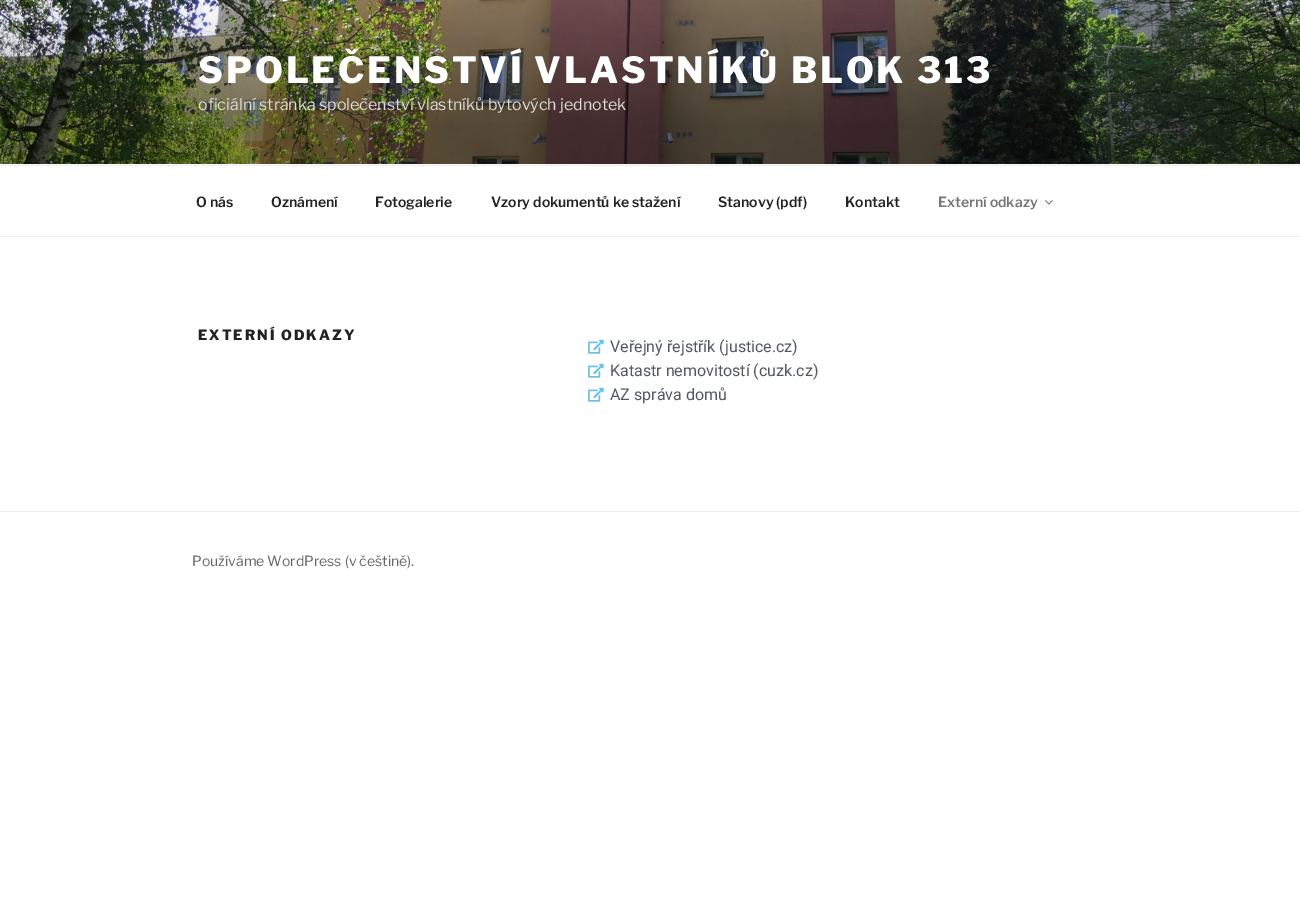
%!PS
<< /PageSize [1300 906] >> setpagedevice
/mt/moveto load def
/co { dup -16 bitshift 255 div exch dup -8 bitshift 255 and 255 div exch 255 and 255 div setrgbcolor } def
/fn { [ exch dup neg 0 0 3 -1 roll 0 0 ] selectfont } def
/tx { co fn moveto show } def
/bx { co rectfill } def
/im { 5 dict begin { /h /w /y /x /name } { exch def } forall
  gsave x y translate w h scale
  w h 8 [w 0 0 h 0 0] name (r) file false 3 colorimage grestore end } def
0 906 translate 1 -1 scale
4 setmiterlimit
0 0 1300 906 16#FFFFFF bx
0 164 1300 1 16#FAFAFA bx
(media/1.raw) 0 0 1300 164 im
0 165 1300 1 16#EEEEEE bx
0 236 1300 1 16#EEEEEE bx
(media/2.raw) 1045 200 8 5 im
(media/3.raw) 588 339 16 15 im
(media/3.raw) 588 363 16 15 im
(media/3.raw) 588 387 16 15 im
0 511 1300 1 16#EEEEEE bx
/LibreFranklin-Thin 36 fn
16#FFFFFF co
198 83 mt 2.9 0 (SPOLEČENSTVÍ VLASTNÍKŮ BLOK 313) ashow
(oficiální stránka společenství vlastníků bytových jednotek) 198 110 /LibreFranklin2-Thin 16 16#DDDBD7 tx
(O nás) 196 207 /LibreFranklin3-Thin 14 16#222222 tx
(Oznámení) 271 207 /LibreFranklin3-Thin 14 16#222222 tx
(Fotogalerie) 375 207 /LibreFranklin3-Thin 14 16#222222 tx
(Vzory dokumentů ke stažení) 491 207 /LibreFranklin3-Thin 14 16#222222 tx
(Stanovy \(pdf\)) 718 207 /LibreFranklin3-Thin 14 16#222222 tx
(Kontakt) 845 207 /LibreFranklin3-Thin 14 16#222222 tx
(Externí odkazy) 938 207 /LibreFranklin3-Thin 14 16#767676 tx
/LibreFranklin-Thin 14 fn
16#222222 co
198 340 mt 2 0 (EXTERNÍ ODKAZY) ashow
(Veřejný řejstřík \(justice.cz\)) 610 352 /Roboto-Regular 16 16#54595F tx
(Katastr nemovitostí \(cuzk.cz\)) 610 376 /Roboto-Regular 16 16#54595F tx
(AZ správa domů) 610 400 /Roboto-Regular 16 16#54595F tx
(Používáme WordPress \(v češtině\).) 192 566 /LibreFranklin2-Thin 14 16#666666 tx
showpage
